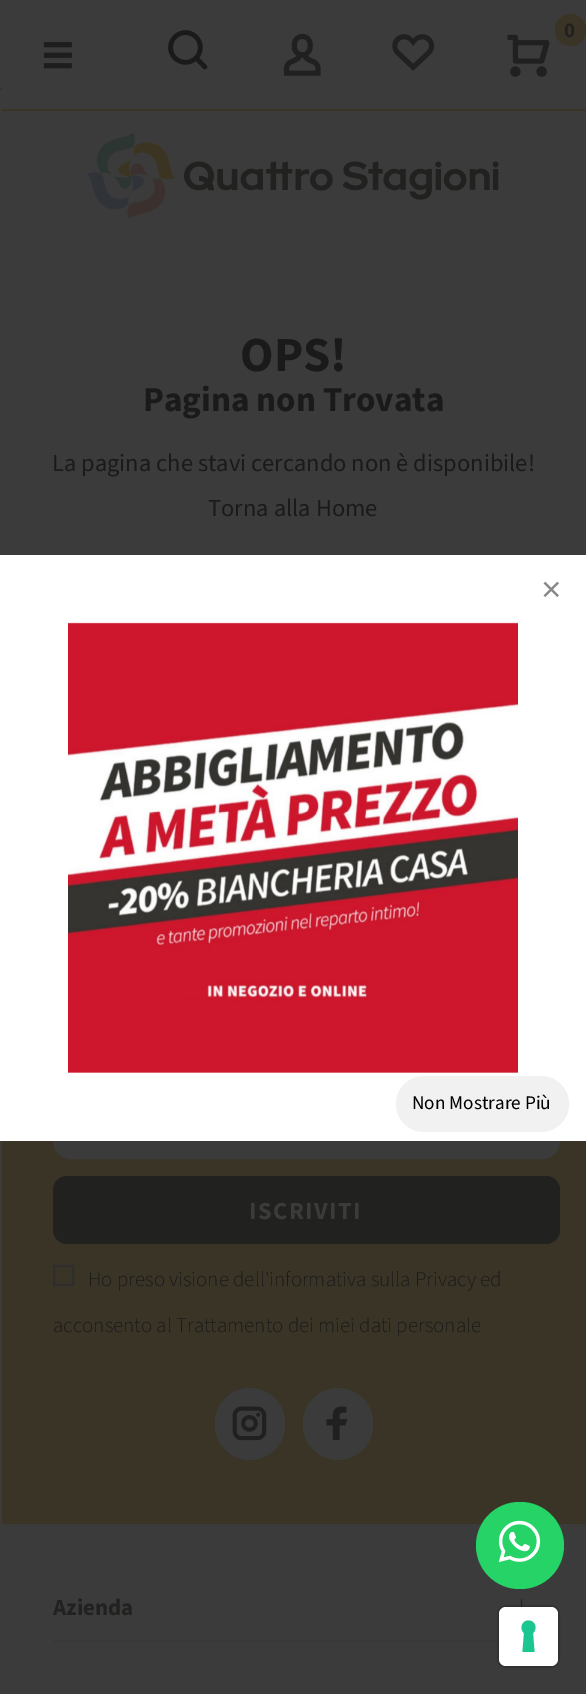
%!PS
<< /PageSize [586 1694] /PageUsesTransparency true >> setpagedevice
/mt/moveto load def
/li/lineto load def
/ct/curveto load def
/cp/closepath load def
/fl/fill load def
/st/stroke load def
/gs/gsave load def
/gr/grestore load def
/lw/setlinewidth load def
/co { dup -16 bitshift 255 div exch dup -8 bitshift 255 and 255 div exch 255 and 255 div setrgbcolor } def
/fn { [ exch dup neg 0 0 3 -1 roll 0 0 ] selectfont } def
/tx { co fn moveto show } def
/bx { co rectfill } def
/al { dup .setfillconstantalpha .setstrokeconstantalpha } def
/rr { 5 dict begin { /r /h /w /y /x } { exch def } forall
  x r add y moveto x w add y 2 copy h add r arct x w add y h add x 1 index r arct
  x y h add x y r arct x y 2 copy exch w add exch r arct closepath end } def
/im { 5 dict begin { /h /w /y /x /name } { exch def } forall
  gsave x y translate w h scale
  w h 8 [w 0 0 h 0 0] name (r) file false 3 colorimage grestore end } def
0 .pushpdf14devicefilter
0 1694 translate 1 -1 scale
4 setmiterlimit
0 0 586 1694 16#3B3B3B bx
(media/1.raw) 168 30 40 40 im
(media/2.raw) 283 33 38 43 im
(media/3.raw) 392 34 43 37 im
16#3A3426 co
555 14 31 32 15.5 rr fl
(media/4.raw) 507 34 43 43 im
0 109 586 2 16#3A3426 bx
0 109 2 2 16#3B3B3B bx
0 88 2 2 16#3A3426 bx
(media/5.raw) 43 42 29 27 im
(media/6.raw) 88 133 411 86 im
2 1141 584 383 16#3A3426 bx
16#3B3B3B co
54 1091 505 67 17 rr gs fl gr
2 lw
st
0 555 586 586 16#FFFFFF bx
(media/7.raw) 68 622 450 451 im
16#F1F1F1 co
396 1076 173 56 28 rr fl
16#212120 co
53 1176 507 68 14 rr fl
16#2E2E2F co
54 1266 19 19 rectstroke
16#3B3B3B co
215 1388 70 72 35 rr fl
(media/8.raw) 232 1406 35 35 im
303 1388 70 72 35 rr fl
(media/9.raw) 326 1406 22 35 im
53 1640 446 2 16#383838 bx
(media/10.raw) 520 1599 3 8 im
16#25D366 co
476 1502 88 87 43.5 rr fl
(media/11.raw) 498 1520 43 43 im
0.15 al
16#000000 co
498 1606 61 61 8 rr st
1 al
16#FFFFFF co
499 1607 59 59 7 rr fl
16#1CC691 co
528.5 1620.5 mt 535 1620.5 538 1628.5 533 1633 ct 534.5 1652 li 522.5 1652 li 524 1633 li 519 1628.5 522 1620.5 528.5 1620.5 ct cp eofill
(0) 564 37 /SourceSans3-Bold 21 16#212120 tx
(OPS!) 240 371 /SourceSans3-Bold 49 16#1A1A1A tx
(Pagina non Trovata) 143 411 /SourceSans3-Bold 35 16#1A1A1A tx
(La pagina che stavi cercando non è disponibile!) 52 471 /SourceSans3-Regular 24.5 16#1A1A1A tx
(Torna alla Home) 208 516 /SourceSans3-Regular 24.5 16#1A1A1A tx
(×) 541 601 /LiberationSans-Regular 35 16#888888 tx
(Non Mostrare Più) 412 1109 /SourceSans3-Regular 19.25 16#000000 tx
/SourceSans3-Bold 24.5 fn
16#3B3B3B co
249 1219 mt 1.5 0 (ISCRIVITI) ashow
(Ho preso visione dell'informativa sulla Privacy ed) 88 1286 /SourceSans3-Light 21 16#1A1A1A tx
(acconsento al Trattamento dei miei dati personale) 53 1332 /SourceSans3-Light 21 16#1A1A1A tx
(Azienda) 53 1615 /SourceSans3-Bold 23 16#212120 tx
.poppdf14devicefilter showpage
